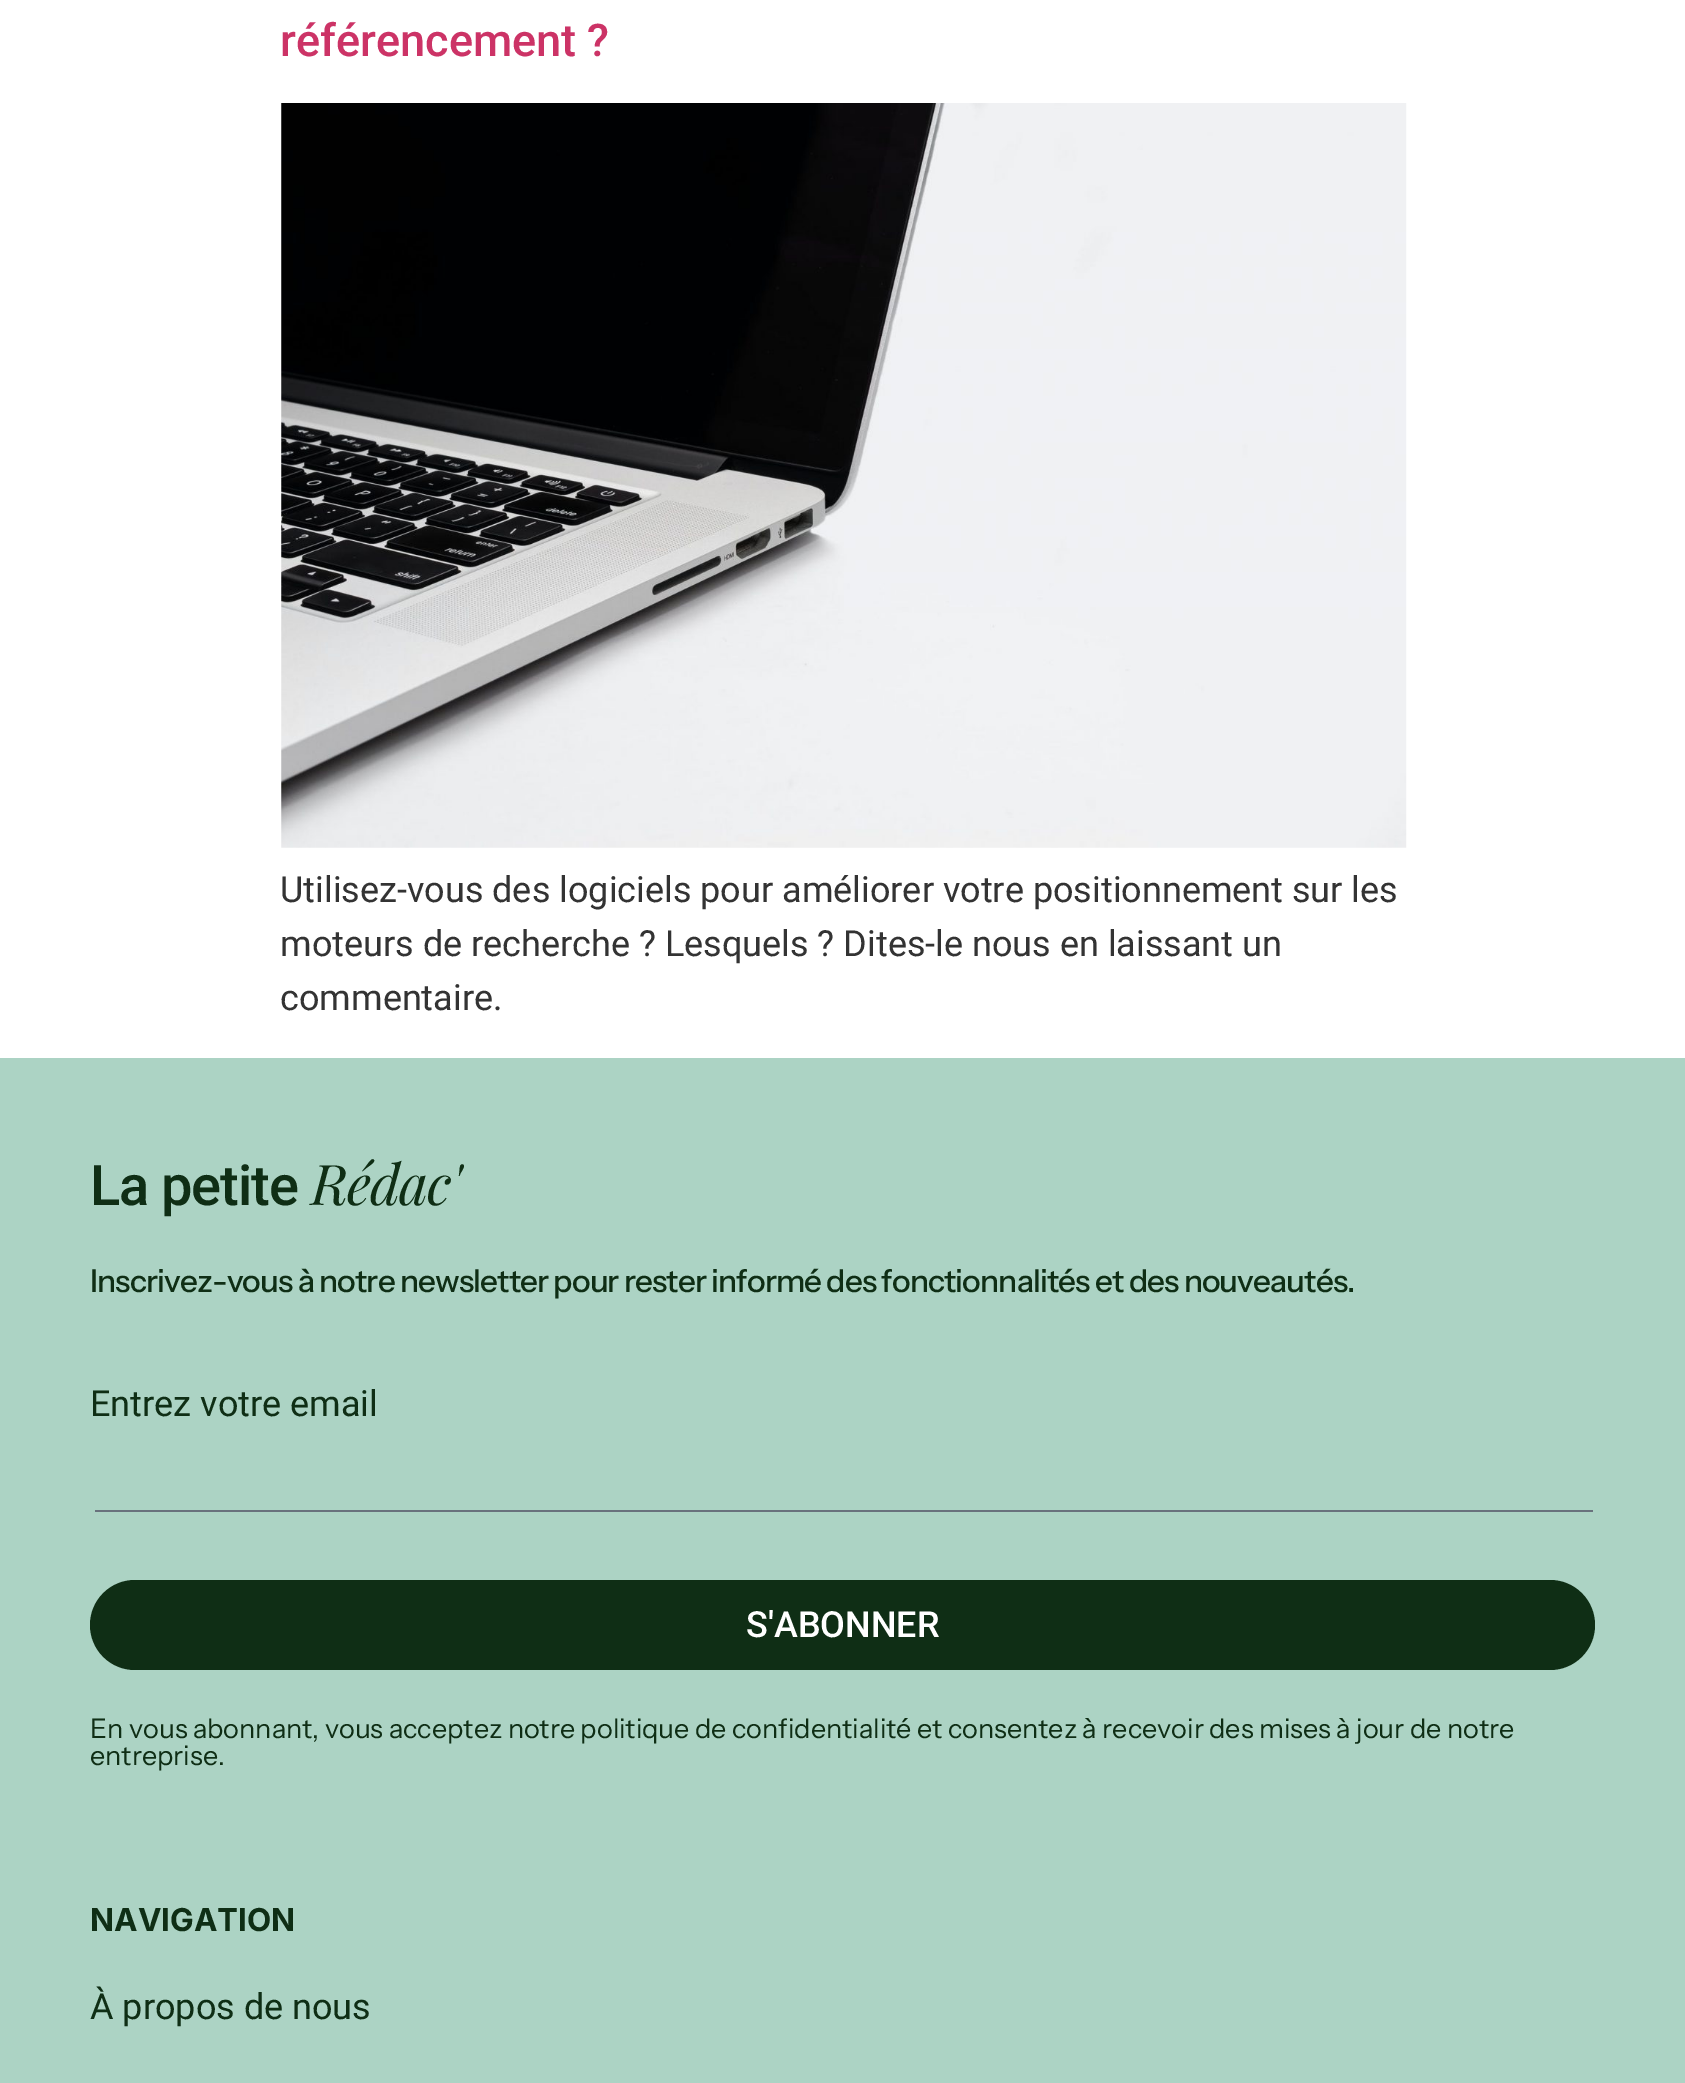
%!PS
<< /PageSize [1685 2083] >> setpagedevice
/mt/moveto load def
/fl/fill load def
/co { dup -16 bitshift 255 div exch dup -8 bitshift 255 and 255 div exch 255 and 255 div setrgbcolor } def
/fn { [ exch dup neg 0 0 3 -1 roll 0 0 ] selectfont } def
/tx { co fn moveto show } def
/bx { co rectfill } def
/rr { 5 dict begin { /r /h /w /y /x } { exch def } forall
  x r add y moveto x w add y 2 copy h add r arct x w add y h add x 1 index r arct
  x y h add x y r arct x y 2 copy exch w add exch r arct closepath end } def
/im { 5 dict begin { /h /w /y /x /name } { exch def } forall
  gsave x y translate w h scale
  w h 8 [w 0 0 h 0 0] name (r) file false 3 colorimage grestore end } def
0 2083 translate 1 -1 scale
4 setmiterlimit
0 0 1685 2083 16#FFFFFF bx
(media/1.raw) 281 103 1126 745 im
0 1058 1685 1025 16#ACD3C4 bx
95 1510 1498 2 16#69727D bx
16#0F2E15 co
90 1580 1505 90 45 rr fl
(référencement ?) 280 56 /Roboto-Medium 45 16#CC3366 tx
(Utilisez-vous des logiciels pour améliorer votre positionnement sur les) 280 902 /Roboto-Regular 36 16#333333 tx
(moteurs de recherche ? Lesquels ? Dites-le nous en laissant un) 280 956 /Roboto-Regular 36 16#333333 tx
(commentaire.) 280 1010 /Roboto-Regular 36 16#333333 tx
/Roboto-Medium 56 fn
16#0F2E15 co
90 1205 mt -1.1 0 (La petite) ashow
/PlayfairDisplay-Italic 56 fn
311 1205 mt -1.1 0 (Rédac') ashow
/InstrumentSans-Medium 31.5 fn
90 1292 mt -.9 0 (Inscrivez-vous à notre newsletter pour rester informé des fonctionnalités et des nouveautés.) ashow
(Entrez votre email) 90 1416 /Roboto-Regular 36 16#0F2E15 tx
(S'ABONNER) 746 1637 /Roboto-Medium 36 16#FFFFFF tx
(En vous abonnant, vous acceptez notre politique de confidentialité et consentez à recevoir des mises à jour de notre) 90 1738 /InstrumentSans-Regular 27 16#0F2E15 tx
(entreprise.) 90 1765 /InstrumentSans-Regular 27 16#0F2E15 tx
(NAVIGATION) 90 1931 /Inter-Bold 31.5 16#0F2E15 tx
(À propos de nous) 90 2019 /Roboto-Regular 36 16#0F2E15 tx
showpage
